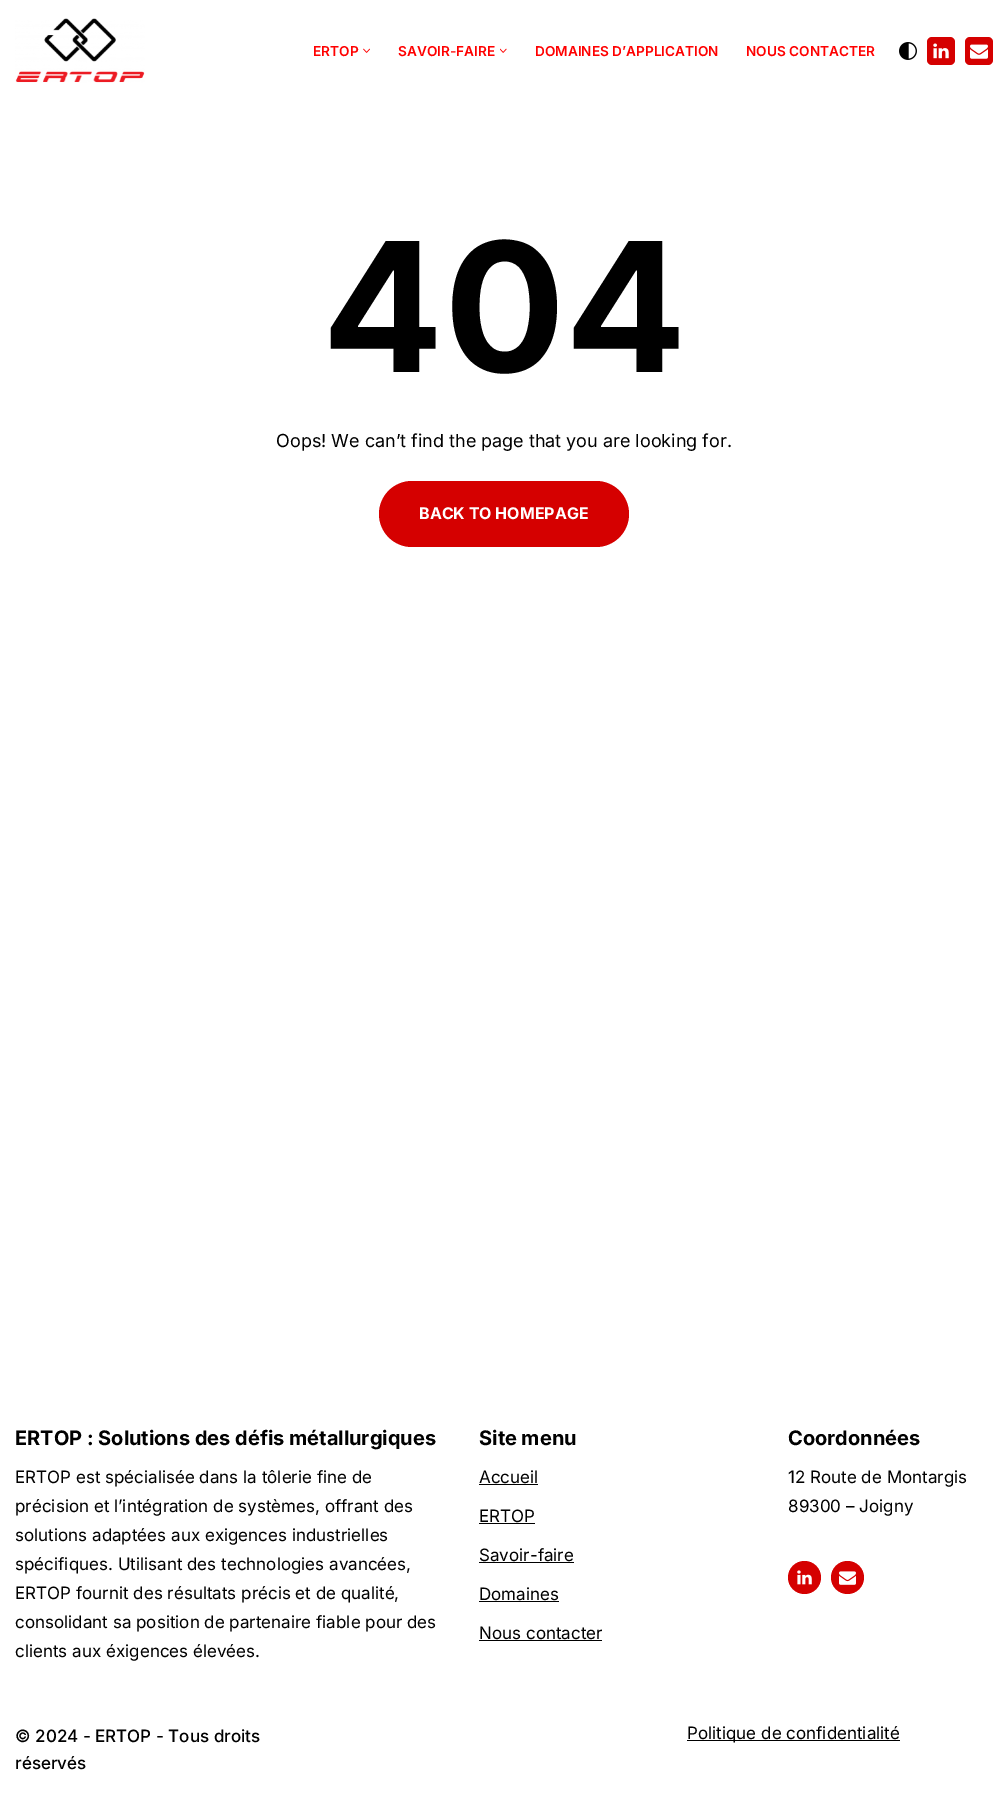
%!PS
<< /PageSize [1008 1805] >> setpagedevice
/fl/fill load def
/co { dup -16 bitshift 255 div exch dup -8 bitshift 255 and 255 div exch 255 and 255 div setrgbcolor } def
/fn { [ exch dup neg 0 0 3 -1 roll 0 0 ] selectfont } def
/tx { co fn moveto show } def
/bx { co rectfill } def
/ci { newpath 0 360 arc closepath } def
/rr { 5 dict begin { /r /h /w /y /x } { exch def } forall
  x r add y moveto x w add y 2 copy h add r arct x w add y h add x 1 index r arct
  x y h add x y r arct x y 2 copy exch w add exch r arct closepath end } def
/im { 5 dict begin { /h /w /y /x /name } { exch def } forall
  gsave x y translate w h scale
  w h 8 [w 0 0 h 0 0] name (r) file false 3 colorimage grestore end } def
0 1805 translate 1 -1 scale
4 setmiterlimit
0 0 1008 1805 16#FFFFFF bx
(media/1.raw) 15 18 130 65 im
(media/2.raw) 363 48 7 5 im
(media/3.raw) 500 48 7 5 im
(media/4.raw) 899 42 18 18 im
16#D50000 co
927 37 28 28 5 rr fl
(media/5.raw) 933 43 16 16 im
965 37 28 28 5 rr fl
(media/6.raw) 970 44 18 15 im
379 481 250 66 33 rr fl
479 1484 59 1 16#000000 bx
479 1523 56 1 16#000000 bx
479 1562 95 1 16#000000 bx
479 1601 80 1 16#000000 bx
479 1640 123 1 16#000000 bx
16#D50000 co
804.5 1577.5 16.5 ci fl
(media/7.raw) 797 1570 15 15 im
847.5 1577.5 16.5 ci fl
(media/8.raw) 839 1571 17 14 im
687 1740 213 1 16#000000 bx
(ERTOP) 313 56 /Inter-SemiBold 13.6 16#FF0000 tx
(SAVOIR-FAIRE) 398 56 /Inter-SemiBold 13.6 16#FF0000 tx
(DOMAINES D’APPLICATION) 535 56 /Inter-SemiBold 13.6 16#FF0000 tx
(NOUS CONTACTER) 746 56 /Inter-SemiBold 13.6 16#FF0000 tx
(404) 322 372 /Inter-Bold 180 16#000000 tx
(Oops! We can’t find the page that you are looking for.) 276 447 /Inter-Regular 18 16#000000 tx
(BACK TO HOMEPAGE) 419 519 /Inter-Bold 16 16#FFFFFF tx
(ERTOP : Solutions des défis métallurgiques) 15 1445 /Inter-Bold 20 16#000000 tx
(ERTOP est spécialisée dans la tôlerie fine de) 15 1483 /Inter-Regular 17 16#000000 tx
(précision et l’intégration de systèmes, offrant des) 15 1512 /Inter-Regular 17 16#000000 tx
(solutions adaptées aux exigences industrielles) 15 1541 /Inter-Regular 17 16#000000 tx
(spécifiques. Utilisant des technologies avancées,) 15 1570 /Inter-Regular 17 16#000000 tx
(ERTOP fournit des résultats précis et de qualité,) 15 1599 /Inter-Regular 17 16#000000 tx
(consolidant sa position de partenaire fiable pour des) 15 1628 /Inter-Regular 17 16#000000 tx
(clients aux éxigences élevées.) 15 1657 /Inter-Regular 17 16#000000 tx
(Site menu) 479 1445 /Inter-Bold 20 16#000000 tx
(Accueil) 479 1483 /Inter-Regular 17 16#000000 tx
(ERTOP) 479 1522 /Inter-Regular 17 16#000000 tx
(Savoir-faire) 479 1561 /Inter-Regular 17 16#000000 tx
(Domaines) 479 1600 /Inter-Regular 17 16#000000 tx
(Nous contacter) 479 1639 /Inter-Regular 17 16#000000 tx
(Coordonnées) 788 1445 /Inter-Bold 20 16#000000 tx
(12 Route de Montargis) 788 1483 /Inter-Regular 17 16#000000 tx
(89300 – Joigny) 788 1512 /Inter-Regular 17 16#000000 tx
(© 2024 - ERTOP - Tous droits) 15 1742 /Inter-Medium 17 16#000000 tx
(réservés) 15 1769 /Inter-Medium 17 16#000000 tx
(Politique de confidentialité) 687 1739 /Inter-Regular 17 16#000000 tx
showpage
